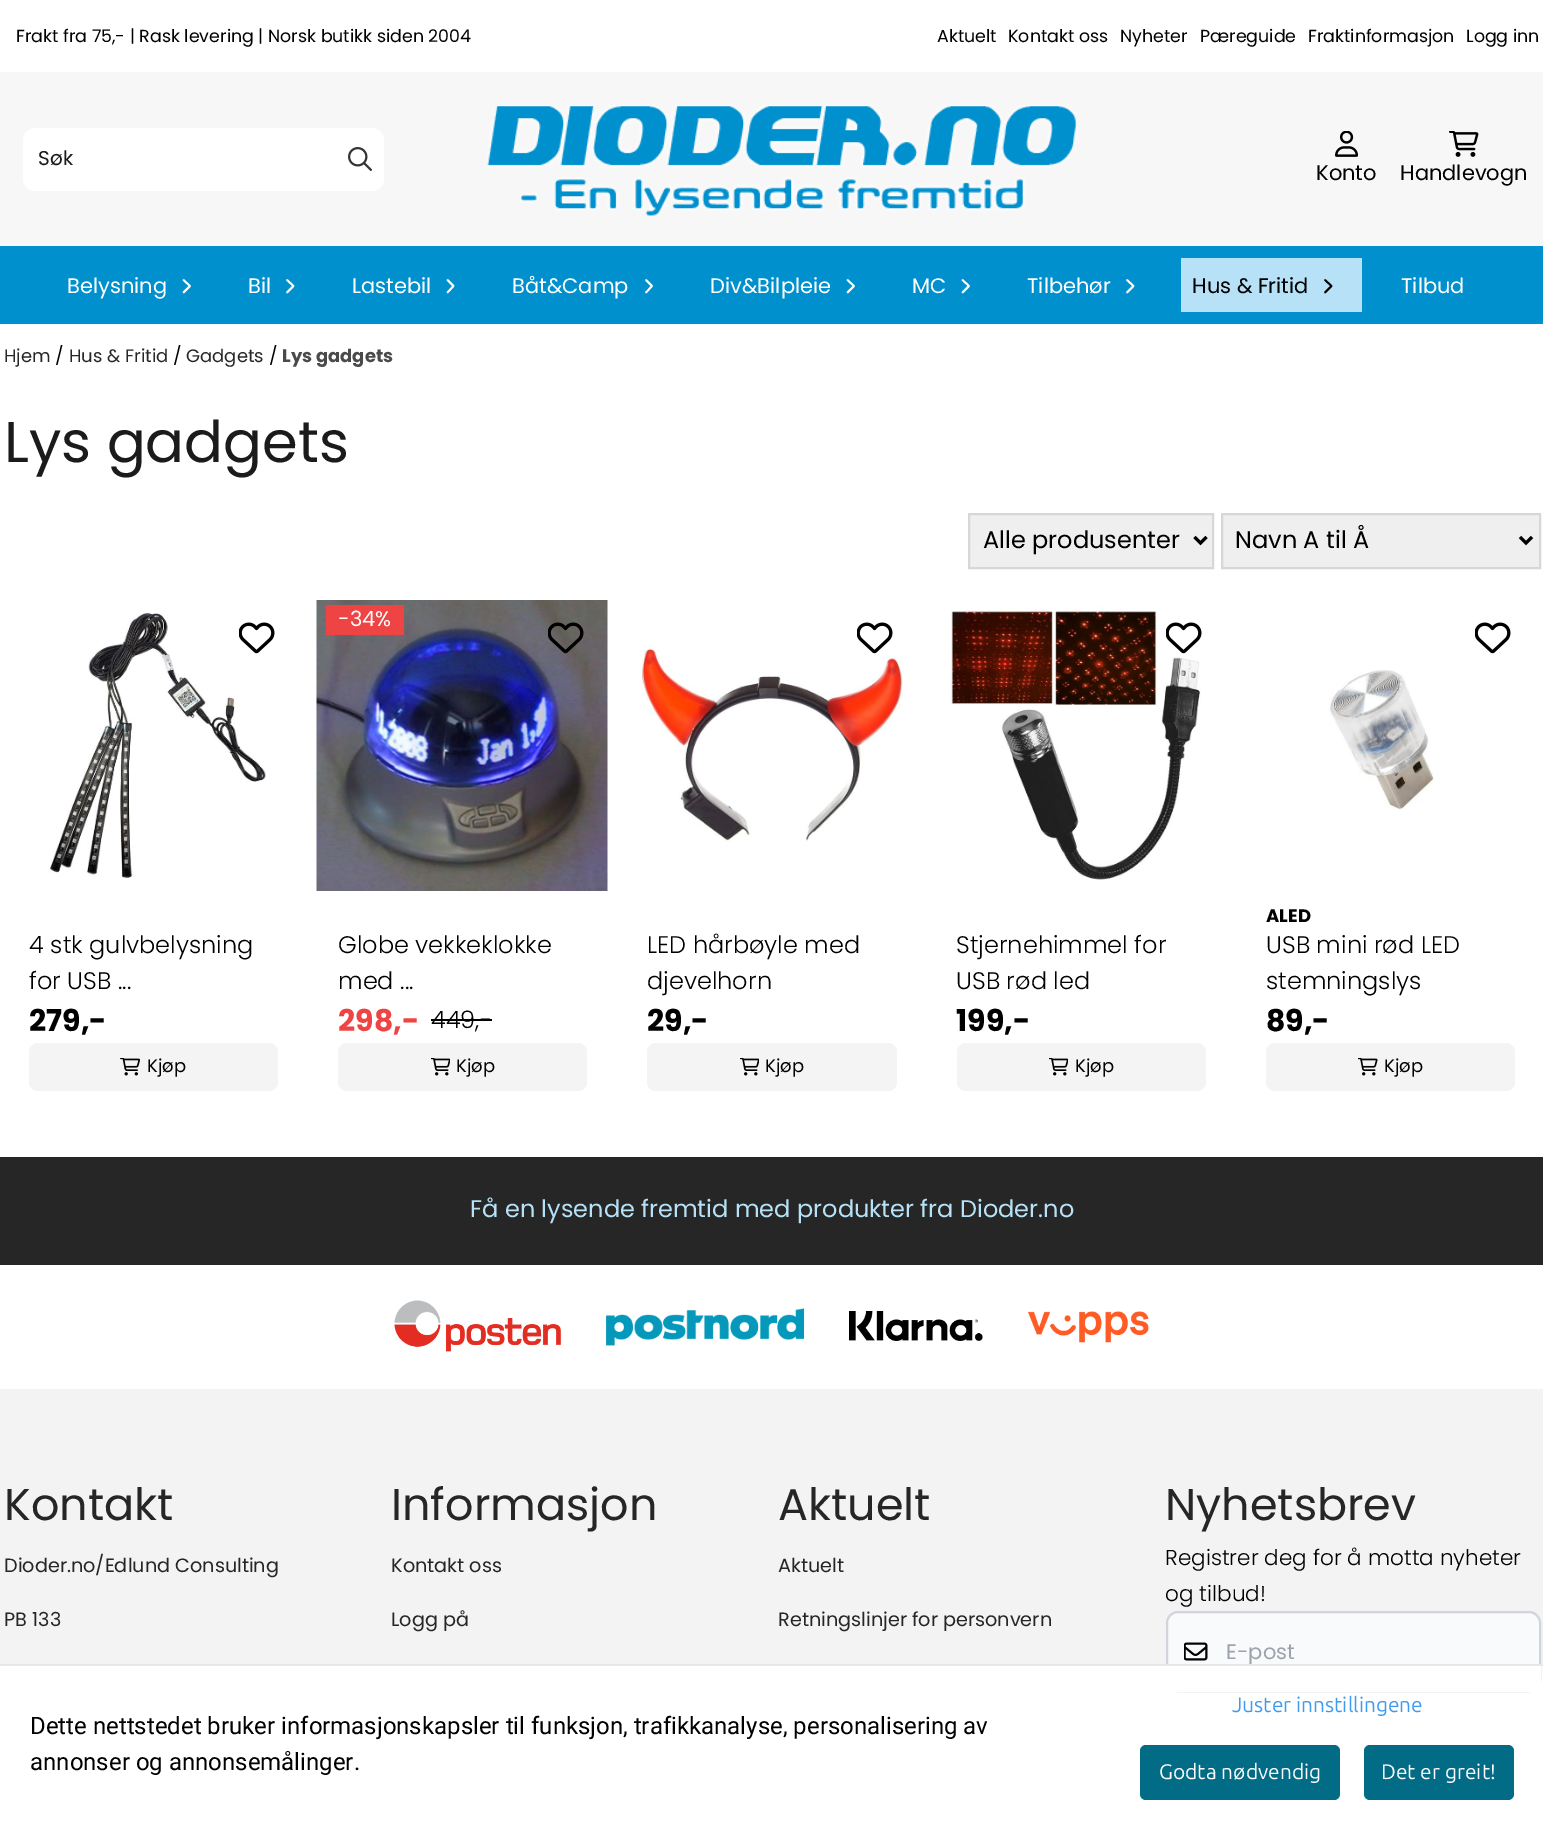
%!PS
<< /PageSize [1543 1824] >> setpagedevice
/mt/moveto load def
/li/lineto load def
/cp/closepath load def
/fl/fill load def
/st/stroke load def
/gs/gsave load def
/gr/grestore load def
/lw/setlinewidth load def
/co { dup -16 bitshift 255 div exch dup -8 bitshift 255 and 255 div exch 255 and 255 div setrgbcolor } def
/fn { [ exch dup neg 0 0 3 -1 roll 0 0 ] selectfont } def
/tx { co fn moveto show } def
/bx { co rectfill } def
/rr { 5 dict begin { /r /h /w /y /x } { exch def } forall
  x r add y moveto x w add y 2 copy h add r arct x w add y h add x 1 index r arct
  x y h add x y r arct x y 2 copy exch w add exch r arct closepath end } def
/im { 5 dict begin { /h /w /y /x /name } { exch def } forall
  gsave x y translate w h scale
  w h 8 [w 0 0 h 0 0] name (r) file false 3 colorimage grestore end } def
0 1824 translate 1 -1 scale
4 setmiterlimit
0 0 1543 1824 16#FFFFFF bx
0 72 1543 174 16#F7F7F7 bx
16#FFFFFF co
23 128 361 63 12 rr fl
(media/1.raw) 348 147 24 24 im
(media/2.raw) 487 105 590 111 im
(media/3.raw) 1335 131 23 26 im
(media/4.raw) 1449 131 30 26 im
0 246 1543 78 16#0090CD bx
16#FFFFFF co
1.8 lw
1 setlinecap
1 setlinejoin
183.5 280 mt 190 286 li 183.5 292.5 li st
287 280 mt 293.5 286 li 287 292.5 li st
447.5 280 mt 453.5 286 li 447.5 292.5 li st
646 280 mt 652 286 li 646 292.5 li st
847.5 280 mt 854 286 li 847.5 292.5 li st
962.5 280 mt 969 286 li 962.5 292.5 li st
1127 280 mt 1133.5 286 li 1127 292.5 li st
1181 258 181 54 16#B6E1F7 bx
16#000000 co
1325 280 mt 1331.5 286 li 1325 292.5 li st
16#EFEFEF co
969 514 mt 1213 514 li 1213 568 li 969 568 li cp gs fl gr
16#D7D7D7 co
2 lw
0 setlinecap
0 setlinejoin
st
16#000000 co
3 lw
1194.5 537 mt 1200.5 543 li 1206.5 537 li st
16#EFEFEF co
1222 514 mt 1540 514 li 1540 568 li 1222 568 li cp gs fl gr
16#D7D7D7 co
2 lw
st
16#000000 co
3 lw
1520 537 mt 1526 543 li 1532 537 li st
(media/5.raw) 49 613 217 265 im
(media/6.raw) 239 622 36 32 im
16#F4F4F5 co
29 1043 249 48 9 rr fl
(media/7.raw) 120 1058 20 18 im
(media/8.raw) 316 600 292 291 im
326 605 78 30 16#EF4444 bx
(media/9.raw) 548 622 36 32 im
431 1019 61 2 16#000000 bx
16#F4F4F5 co
338 1043 249 48 9 rr fl
(media/10.raw) 431 1058 19 18 im
(media/11.raw) 639 646 266 196 im
(media/6.raw) 857 622 36 32 im
647 1043 250 48 9 rr fl
(media/10.raw) 740 1058 19 18 im
(media/12.raw) 950 607 251 273 im
(media/6.raw) 1166 622 36 32 im
957 1043 249 48 9 rr fl
(media/10.raw) 1049 1058 19 18 im
(media/6.raw) 1475 622 36 32 im
(media/13.raw) 1329 670 105 140 im
1266 1043 249 48 9 rr fl
(media/14.raw) 1358 1058 20 18 im
0 1157 1543 108 16#262626 bx
(media/15.raw) 394 1300 167 52 im
(media/16.raw) 606 1308 198 38 im
(media/17.raw) 849 1311 134 30 im
(media/18.raw) 1028 1311 121 32 im
0 1389 1543 275 16#F3F3F3 bx
16#F9FAFB co
1167 1612 373 79 11 rr gs fl gr
16#D1D5DB co
2 lw
st
(media/19.raw) 1184 1642 24 19 im
1166 1666 375 26 16#FFFFFF bx
16#026B85 co
1140 1745 200 55 6 rr fl
1364 1745 150 55 6 rr fl
(Frakt fra 75,- | Rask levering | Norsk butikk siden 2004) 16 42 /Poppins-Regular 17.4 16#000000 tx
(Aktuelt) 937 42 /Poppins-Regular 17.4 16#000000 tx
(Kontakt oss) 1008 42 /Poppins-Regular 17.4 16#000000 tx
(Nyheter) 1120 42 /Poppins-Regular 17.4 16#000000 tx
(Pæreguide) 1200 42 /Poppins-Regular 17.4 16#000000 tx
(Fraktinformasjon) 1308 42 /Poppins-Regular 17.4 16#000000 tx
(Logg inn) 1466 42 /Poppins-Regular 17.4 16#000000 tx
(Søk) 38 165 /Poppins-Regular 20 16#1B1B1B tx
(Konto) 1316 180 /Poppins-Regular 21 16#000000 tx
(Handlevogn) 1400 180 /Poppins-Regular 21 16#000000 tx
(Belysning) 67 293 /Poppins-Regular 21 16#FFFFFF tx
(Bil) 248 293 /Poppins-Regular 21 16#FFFFFF tx
(Lastebil) 352 293 /Poppins-Regular 21 16#FFFFFF tx
(Båt&Camp) 512 293 /Poppins-Regular 21 16#FFFFFF tx
(Div&Bilpleie) 710 293 /Poppins-Regular 21 16#FFFFFF tx
(MC) 912 293 /Poppins-Regular 21 16#FFFFFF tx
(Tilbehør) 1027 293 /Poppins-Regular 21 16#FFFFFF tx
(Hus & Fritid) 1192 293 /Poppins-Regular 21 16#000000 tx
(Tilbud) 1401 293 /Poppins-Regular 21 16#FFFFFF tx
(Hjem) 4 362 /Poppins-Regular 18 16#262626 tx
(/) 55 362 /Poppins-Regular 18 16#000000 tx
(Hus & Fritid) 69 362 /Poppins-Regular 18 16#262626 tx
(/) 173 362 /Poppins-Regular 18 16#000000 tx
(Gadgets) 186 362 /Poppins-Regular 18 16#262626 tx
(/) 269 362 /Poppins-Regular 18 16#000000 tx
(Lys gadgets) 282 362 /Poppins-Bold 18 16#4A4A4A tx
(Lys gadgets) 4 462 /Poppins-Regular 57.5 16#1B1B1B tx
(Alle produsenter) 983 548 /Poppins-Regular 24 16#000000 tx
(Navn A til Å) 1235 548 /Poppins-Regular 24 16#000000 tx
(4 stk gulvbelysning) 29 953 /Poppins-Light 24 16#000000 tx
(for USB ...) 29 989 /Poppins-Light 24 16#000000 tx
(279,-) 29 1031 /Poppins-Bold 30 16#000000 tx
(Kjøp) 147 1072 /Poppins-Regular 18 16#000000 tx
(-34%) 338 626 /Poppins-Regular 21 16#FFFFFF tx
(Globe vekkeklokke) 338 953 /Poppins-Light 24 16#000000 tx
(med ...) 338 989 /Poppins-Light 24 16#000000 tx
(298,-) 338 1031 /Poppins-Bold 30 16#EF4444 tx
(449,-) 431 1028 /Poppins-Light 24 16#000000 tx
(Kjøp) 456 1072 /Poppins-Regular 18 16#000000 tx
(LED hårbøyle med) 647 953 /Poppins-Light 24 16#000000 tx
(djevelhorn) 647 989 /Poppins-Light 24 16#000000 tx
(29,-) 647 1031 /Poppins-Bold 30 16#000000 tx
(Kjøp) 765 1072 /Poppins-Regular 18 16#000000 tx
(Stjernehimmel for) 956 953 /Poppins-Light 24 16#000000 tx
(USB rød led) 956 989 /Poppins-Light 24 16#000000 tx
(199,-) 956 1031 /Poppins-Bold 30 16#000000 tx
(Kjøp) 1075 1072 /Poppins-Regular 18 16#000000 tx
(ALED) 1266 922 /Poppins-Bold 18 16#000000 tx
(USB mini rød LED) 1266 953 /Poppins-Light 24 16#000000 tx
(stemningslys) 1266 989 /Poppins-Light 24 16#000000 tx
(89,-) 1266 1031 /Poppins-Bold 30 16#000000 tx
(Kjøp) 1384 1072 /Poppins-Regular 18 16#000000 tx
(Få en lysende fremtid med produkter fra Dioder.no) 470 1217 /Poppins-Regular 24 16#B6E1F7 tx
(Kontakt) 4 1520 /Poppins-Regular 44.5 16#262626 tx
(Dioder.no/Edlund Consulting) 4 1572 /Poppins-Regular 19.25 16#262626 tx
(PB 133) 4 1626 /Poppins-Regular 19.25 16#262626 tx
(Informasjon) 391 1520 /Poppins-Regular 44.5 16#262626 tx
(Kontakt oss) 391 1572 /Poppins-Regular 19.25 16#262626 tx
(Logg på) 391 1626 /Poppins-Regular 19.25 16#262626 tx
(Aktuelt) 778 1520 /Poppins-Regular 44.5 16#262626 tx
(Aktuelt) 778 1572 /Poppins-Regular 19.25 16#262626 tx
(Retningslinjer for personvern) 778 1626 /Poppins-Regular 19.25 16#262626 tx
(Nyhetsbrev) 1165 1520 /Poppins-Regular 44.5 16#262626 tx
(Registrer deg for å motta nyheter) 1165 1565 /Poppins-Light 21.6 16#000000 tx
(og tilbud!) 1165 1601 /Poppins-Light 21.6 16#000000 tx
(E-post) 1226 1659 /Poppins-Regular 21 16#9CA3AF tx
0 1664 1543 2 16#E5E7EB bx
(Dette nettstedet bruker informasjonskapsler til funksjon, trafikkanalyse, personalisering av) 30 1734 /Roboto-Regular 24 16#000000 tx
(annonser og annonsemålinger.) 30 1770 /Roboto-Regular 24 16#000000 tx
(Juster innstillingene) 1232 1712 /Ubuntu-Regular 21 16#409AEF tx
(Godta nødvendig) 1159 1779 /Ubuntu-Regular 21 16#FFFFFF tx
(Det er greit!) 1381 1779 /Ubuntu-Regular 21 16#FFFFFF tx
showpage
